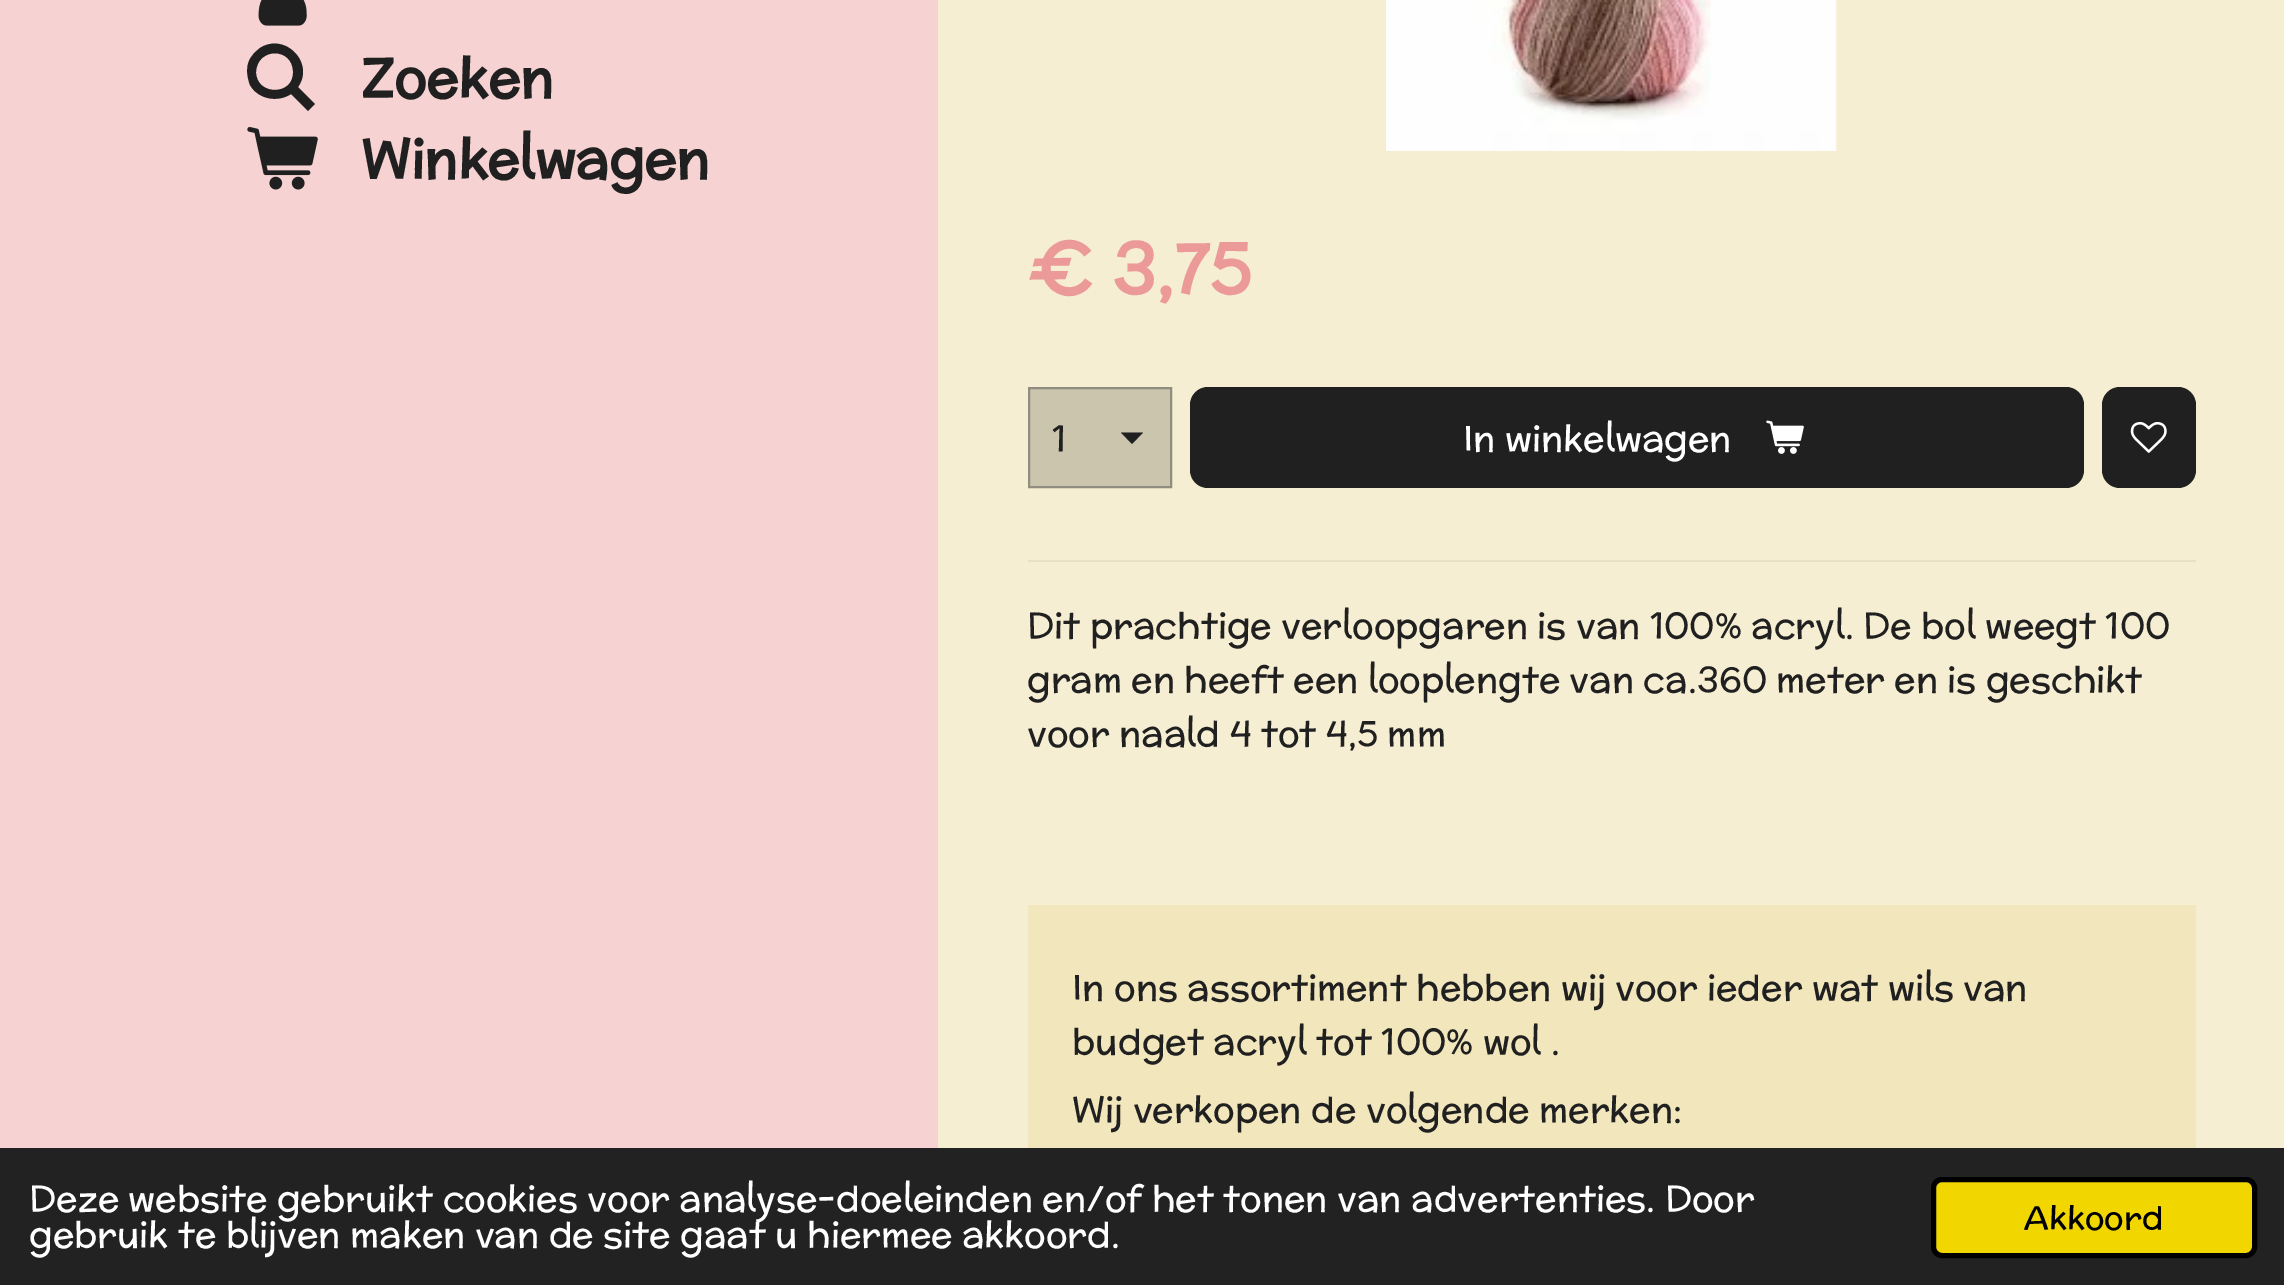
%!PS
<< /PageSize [2284 1285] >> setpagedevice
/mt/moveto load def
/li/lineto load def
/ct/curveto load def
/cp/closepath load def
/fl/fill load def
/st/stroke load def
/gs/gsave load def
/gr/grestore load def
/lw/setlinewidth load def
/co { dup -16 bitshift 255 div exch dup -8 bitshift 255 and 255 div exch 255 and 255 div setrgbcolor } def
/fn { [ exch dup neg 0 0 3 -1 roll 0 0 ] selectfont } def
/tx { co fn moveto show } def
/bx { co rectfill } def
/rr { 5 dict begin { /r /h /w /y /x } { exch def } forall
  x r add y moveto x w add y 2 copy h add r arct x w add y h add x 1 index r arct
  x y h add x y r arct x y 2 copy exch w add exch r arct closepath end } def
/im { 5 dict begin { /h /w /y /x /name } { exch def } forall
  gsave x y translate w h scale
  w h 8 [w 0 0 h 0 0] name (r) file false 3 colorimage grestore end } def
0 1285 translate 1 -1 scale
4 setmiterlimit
0 0 2284 1285 16#F6EED2 bx
0 0 938 1148 16#F6D2D2 bx
(media/1.raw) 258 0 49 26 im
16#202020 co
298 87 mt 315 104 li 308 111 li 291 94 li 277 103 258 99 250 85 ct 247 77 246 68 249 61 ct 251 56 255 52 260 48 ct 285 32 315 63 298 87 ct cp 293 72 mt 293 47 257 47 256 72 ct 256 96 294 96 293 72 ct cp fl
(media/2.raw) 247 127 71 63 im
(media/3.raw) 1386 0 451 151 im
1030 389 140 97 16#CBC5AE bx
16#202020 co
1132 444 mt 1121 432.5 li 1143 432.5 li cp fl
16#918D7E co
2 lw
1029 388 142 99 rectstroke
16#202020 co
1190 387 894 101 18 rr fl
(media/4.raw) 1766 420 38 34 im
2102 387 94 101 18 rr fl
(media/5.raw) 2130 422 37 31 im
1028 560 1168 2 16#E7E0C6 bx
1028 905 1168 243 16#F2E6BD bx
0 1148 2284 137 16#222222 bx
16#F1D600 co
1933.5 1179.5 321 76 8.5 rr gs fl gr
16#000000 co
5 lw
st
(Zoeken) 361 97 /McLaren-Bold 54 16#202020 tx
(Winkelwagen) 361 178 /McLaren-Bold 54 16#202020 tx
(€ 3,75) 1027 294 /McLaren-Bold 72 16#EB9999 tx
(1) 1052 451 /McLaren-Regular 36 16#202020 tx
(In winkelwagen) 1463 451 /McLaren-Regular 36 16#FFFFFF tx
(Dit prachtige verloopgaren is van 100% acryl. De bol weegt 100) 1027 638 /McLaren-Regular 36 16#202020 tx
(gram en heeft een looplengte van ca.360 meter en is geschikt) 1027 692 /McLaren-Regular 36 16#202020 tx
(voor naald 4 tot 4,5 mm) 1027 746 /McLaren-Regular 36 16#202020 tx
(In ons assortiment hebben wij voor ieder wat wils van) 1072 1000 /McLaren-Regular 36 16#202020 tx
(budget acryl tot 100% wol .) 1072 1054 /McLaren-Regular 36 16#202020 tx
(Wij verkopen de volgende merken:) 1072 1122 /McLaren-Regular 36 16#202020 tx
(Deze website gebruikt cookies voor analyse-doeleinden en/of het tonen van advertenties. Door) 29 1211 /McLaren-Regular 36 16#FFFFFF tx
(gebruik te blijven maken van de site gaat u hiermee akkoord.) 29 1247 /McLaren-Regular 36 16#FFFFFF tx
(Akkoord) 2024 1229 /McLaren-Regular 32.5 16#000000 tx
showpage
